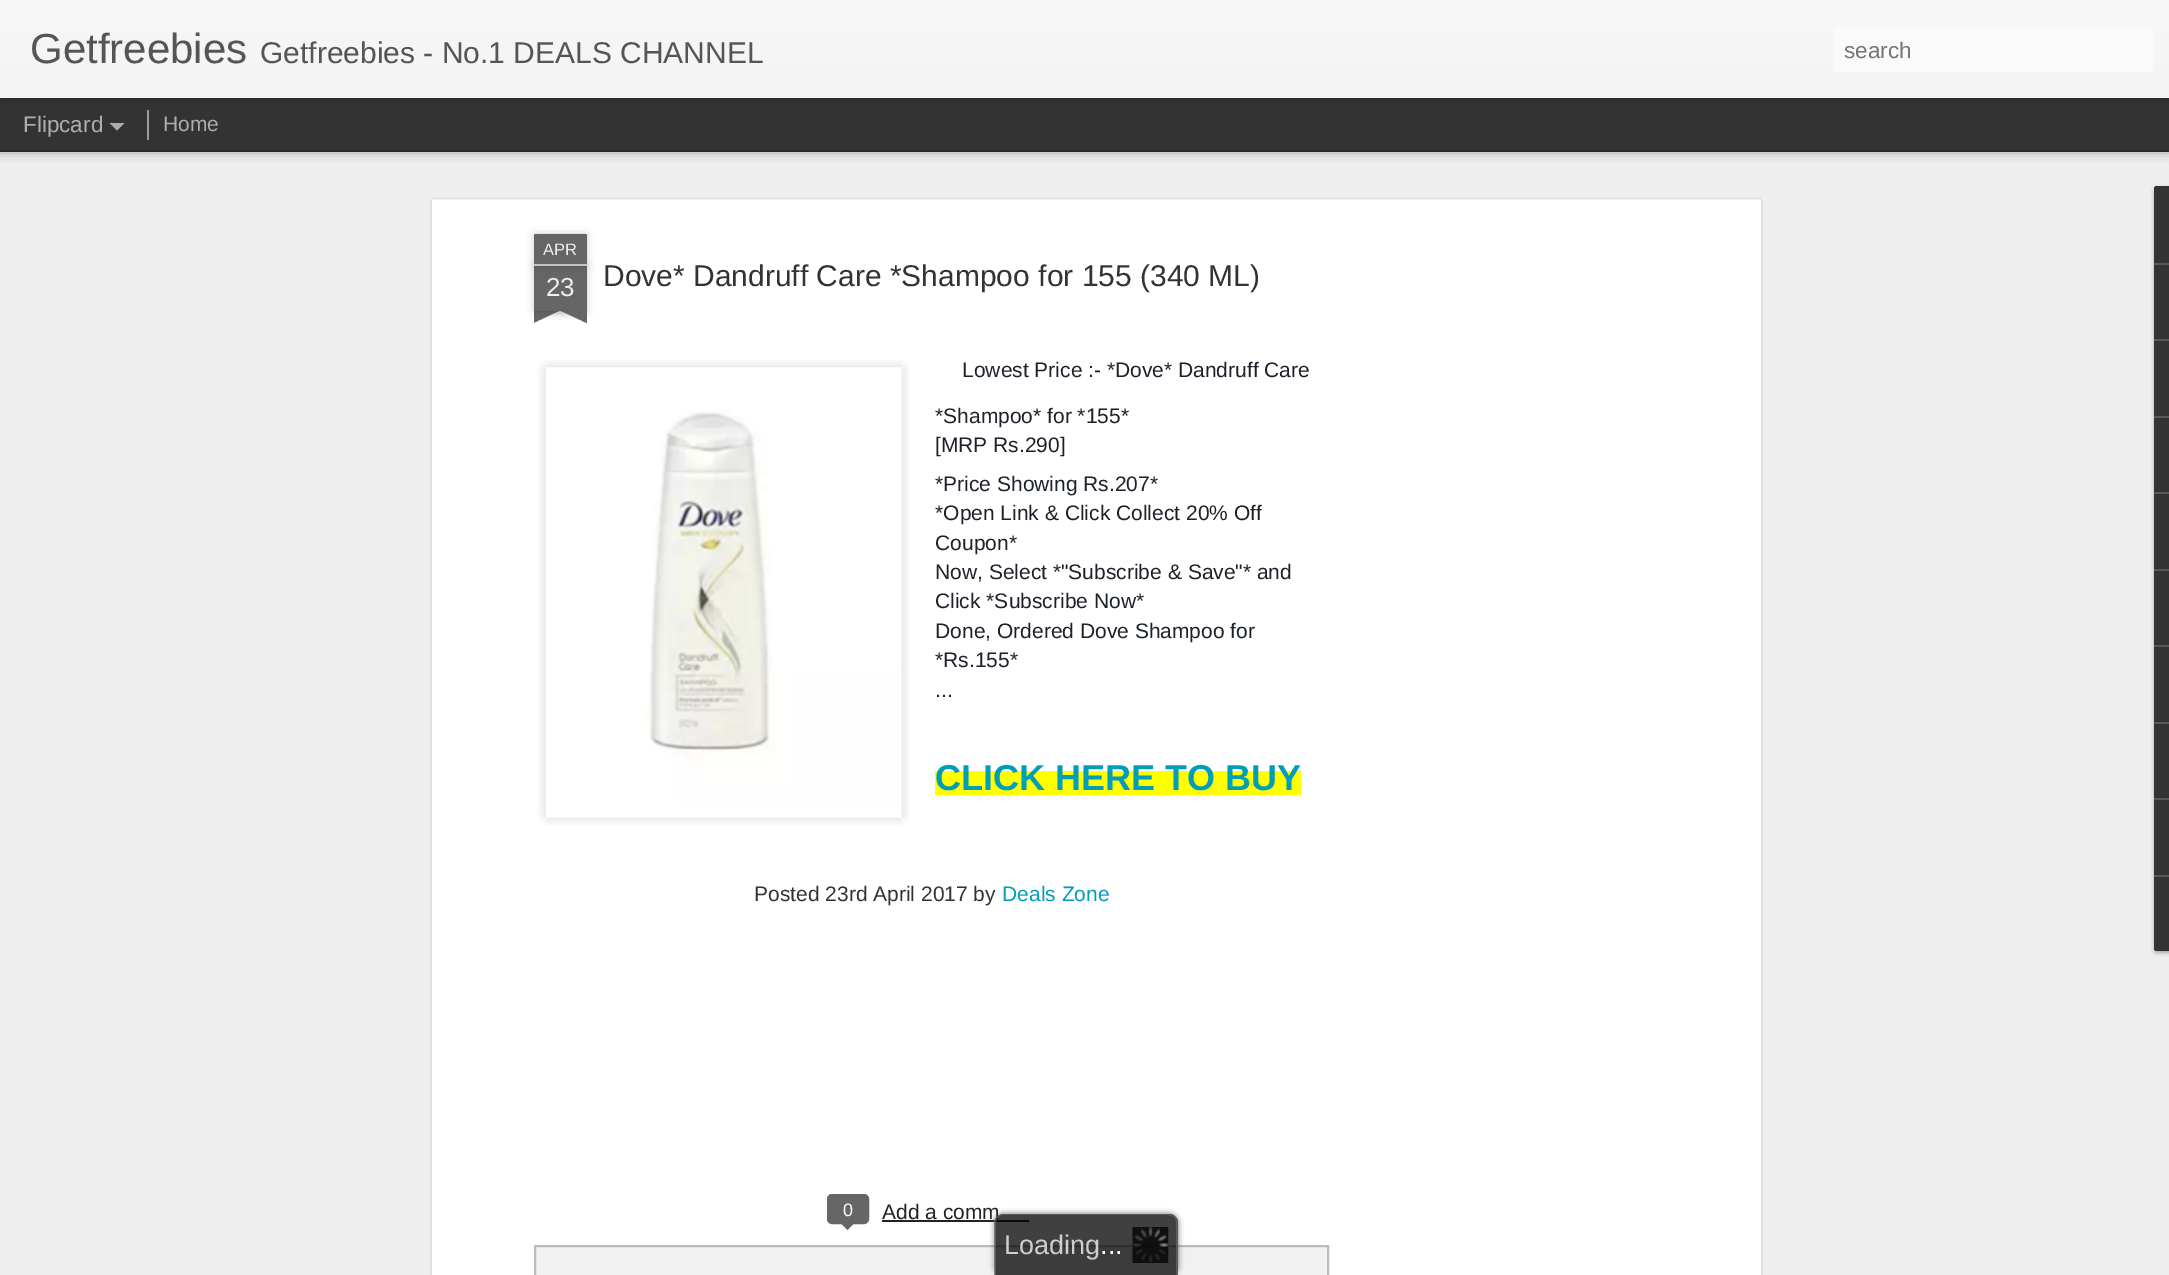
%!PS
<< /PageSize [2169 1275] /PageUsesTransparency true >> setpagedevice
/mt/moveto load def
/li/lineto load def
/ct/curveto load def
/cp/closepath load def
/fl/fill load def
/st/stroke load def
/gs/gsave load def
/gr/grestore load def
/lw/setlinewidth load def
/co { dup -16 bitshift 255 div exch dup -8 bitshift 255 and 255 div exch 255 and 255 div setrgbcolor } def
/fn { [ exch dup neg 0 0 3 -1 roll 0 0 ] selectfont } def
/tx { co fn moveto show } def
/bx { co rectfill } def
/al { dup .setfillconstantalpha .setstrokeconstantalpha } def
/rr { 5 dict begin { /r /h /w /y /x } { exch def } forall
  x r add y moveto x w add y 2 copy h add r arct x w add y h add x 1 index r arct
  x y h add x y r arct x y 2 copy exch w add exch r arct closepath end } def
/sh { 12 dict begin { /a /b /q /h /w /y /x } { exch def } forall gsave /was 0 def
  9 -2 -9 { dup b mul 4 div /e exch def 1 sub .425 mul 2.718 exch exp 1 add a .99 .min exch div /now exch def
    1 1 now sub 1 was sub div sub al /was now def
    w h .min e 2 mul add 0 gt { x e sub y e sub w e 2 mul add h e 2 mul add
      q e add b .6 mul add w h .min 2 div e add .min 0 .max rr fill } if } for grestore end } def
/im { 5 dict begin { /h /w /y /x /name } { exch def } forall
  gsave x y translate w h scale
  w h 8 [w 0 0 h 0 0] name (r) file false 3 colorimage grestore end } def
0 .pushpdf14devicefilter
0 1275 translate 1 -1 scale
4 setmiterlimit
0 0 2169 1275 16#333333 bx
0 152 2169 1123 16#EEEEEE bx
16#000000 co
0 98 2169 52 0 6 .5 sh
0 98 2169 52 16#333333 bx
147 110 2 30 16#999999 bx
16#000000 co
0 0 2169 98 0 4 .3 sh
gs 0 0 mt 2169 0 li 2169 98 li 0 98 li cp clip newpath
<< /ShadingType 2 /ColorSpace /DeviceRGB /Coords [0 0 0 98] /Extend [true true] /Function << /FunctionType 2 /Domain [0 1] /C0 [.969 .969 .969] /C1 [.957 .957 .957] /N 1 >> >> shfill gr
16#FAFAFA co
1833 27 321 45 5 rr fl
16#ADADAD co
109.5 123 mt 124.5 123 li 117 130.5 li cp fl
429 197 1335 1078 16#FFFFFF bx
(media/1.raw) 429 197 1335 1078 im
16#000000 co
534 266 53 45 0 4 .2 sh
534 266 53 45 16#666666 bx
16#000000 co
534 234 53 32 1.5 4 .2 sh
16#666666 co
535.5 234 mt 585.5 234 li 586.5 234 587 234.5 587 235.5 ct 587 266 li 534 266 li 534 235.5 li 534 234.5 534.5 234 535.5 234 ct cp fl
534 264 53 2 16#C2C2C2 bx
gs
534 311 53 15 rectclip
16#000000 co
521 296 75 15 0 4 .2 sh
gr
gs
534 311 53 15 rectclip
16#666666 co
521 312 mt 589 280 li 595 294 li 527 326 li cp fl
gr
gs
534 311 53 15 rectclip
16#000000 co
525 296 75 15 0 4 .2 sh
gr
gs
534 311 53 15 rectclip
16#666666 co
532 280 mt 600 312 li 593 326 li 525 294 li cp fl
gr
(media/2.raw) 538 360 371 465 im
(media/3.raw) 545 367 357 451 im
935 771 366 24 16#FFFF00 bx
16#666666 co
828 1195 40 28 4 rr gs fl gr
2 lw
st
840 1222.5 mt 855 1222.5 li 847.5 1230 li cp fl
882 1220 147 2 16#222222 bx
16#F1F1F1 co
535 1246 mt 1328 1246 li 1328 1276 li 535 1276 li cp gs fl gr
16#BBBBBB co
st
16#000000 co
2154 188 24 765 3 2 .3 sh
16#333333 co
2157 186 mt 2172 186 li 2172 951 li 2157 951 li 2155.5 951 2154 949.5 2154 948 ct 2154 189 li 2154 187.5 2155.5 186 2157 186 ct cp fl
2157 186 mt 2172 186 li 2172 263 li 2154 263 li 2154 189 li 2154 187.5 2155.5 186 2157 186 ct cp fl
2154 263 15 2 16#585858 bx
2154 339 15 2 16#585858 bx
2154 416 15 2 16#585858 bx
2154 492 15 2 16#585858 bx
2154 569 15 2 16#585858 bx
2154 645 15 2 16#585858 bx
2154 722 15 2 16#585858 bx
2154 798 15 2 16#585858 bx
16#333333 co
2154 875 mt 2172 875 li 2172 951 li 2157 951 li 2155.5 951 2154 949.5 2154 948 ct cp fl
2154 875 15 2 16#585858 bx
gs
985 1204 mt 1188 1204 li 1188 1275 li 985 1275 li cp 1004 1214 mt 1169 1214 li 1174 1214 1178 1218 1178 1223 ct 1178 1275 li 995 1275 li 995 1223 li 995 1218 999 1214 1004 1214 ct cp eoclip newpath
16#333333 co
995 1214 183 61 9 3 .75 sh
gr
(Getfreebies) 30 63 /LiberationSans-Regular 42 16#555555 tx
(Getfreebies - No.1 DEALS CHANNEL) 260 63 /LiberationSans-Regular 30 16#555555 tx
(search) 1844 58 /LiberationSans-Regular 22.5 16#757575 tx
(Flipcard) 23 132 /LiberationSans-Regular 22.5 16#ADADAD tx
(Home) 163 131 /LiberationSans-Regular 21 16#ADADAD tx
(APR) 543 255 /LiberationSans-Regular 16.5 16#EEEEEE tx
(23) 546 296 /LiberationSans-Regular 26 16#EEEEEE tx
(Dove* Dandruff Care *Shampoo for 155 \(340 ML\)) 603 286 /LiberationSans-Regular 30 16#333333 tx
(Lowest Price :- *Dove* Dandruff Care) 962 377 /LiberationSans-Regular 21 16#1D2129 tx
(*Shampoo* for *155*) 935 423 /LiberationSans-Regular 21 16#1D2129 tx
([MRP Rs.290]) 935 452 /LiberationSans-Regular 21 16#1D2129 tx
(*Price Showing Rs.207*) 935 491 /LiberationSans-Regular 21 16#1D2129 tx
(*Open Link & Click Collect 20% Off) 935 520 /LiberationSans-Regular 21 16#1D2129 tx
(Coupon*) 935 550 /LiberationSans-Regular 21 16#1D2129 tx
(Now, Select *"Subscribe & Save"* and) 935 579 /LiberationSans-Regular 21 16#1D2129 tx
(Click *Subscribe Now*) 935 608 /LiberationSans-Regular 21 16#1D2129 tx
(Done, Ordered Dove Shampoo for) 935 638 /LiberationSans-Regular 21 16#1D2129 tx
(*Rs.155*) 935 667 /LiberationSans-Regular 21 16#1D2129 tx
(...) 935 697 /LiberationSans-Regular 21 16#1D2129 tx
(CLICK HERE TO BUY) 935 790 /LiberationSans-Bold 36 16#009EB8 tx
(Posted 23rd April 2017 by) 754 901 /LiberationSans-Regular 21 16#333333 tx
(Deals Zone) 1002 901 /LiberationSans-Regular 21 16#009EB8 tx
(0) 843 1216 /LiberationSans-Regular 18 16#FFFFFF tx
(Add a comm) 882 1219 /LiberationSans-Regular 21 16#222222 tx
0.75 al
16#000000 co
1004 1214 mt 1169 1214 li 1174 1214 1178 1218 1178 1223 ct 1178 1275 li 995 1275 li 995 1223 li 995 1218 999 1214 1004 1214 ct cp fl
16#666666 co
1004 1214 mt 1168 1214 li 1173 1214 1178 1218 1178 1222 ct 1178 1275 li 994 1275 li 994 1222 li 994 1218 999 1214 1004 1214 ct cp 1004 1215 mt 1168 1215 li 1173 1215 1176 1218 1176 1222 ct 1176 1275 li 996 1275 li 996 1222 li 996 1218 999 1215 1004 1215 ct cp eofill
1 al
(media/4.raw) 1132 1227 37 36 im
(Loading) 1004 1254 /LiberationSans-Regular 27 16#CECECE tx
(...) 1100 1254 /LiberationSans-Regular 27 16#FFFFFF tx
.poppdf14devicefilter showpage
